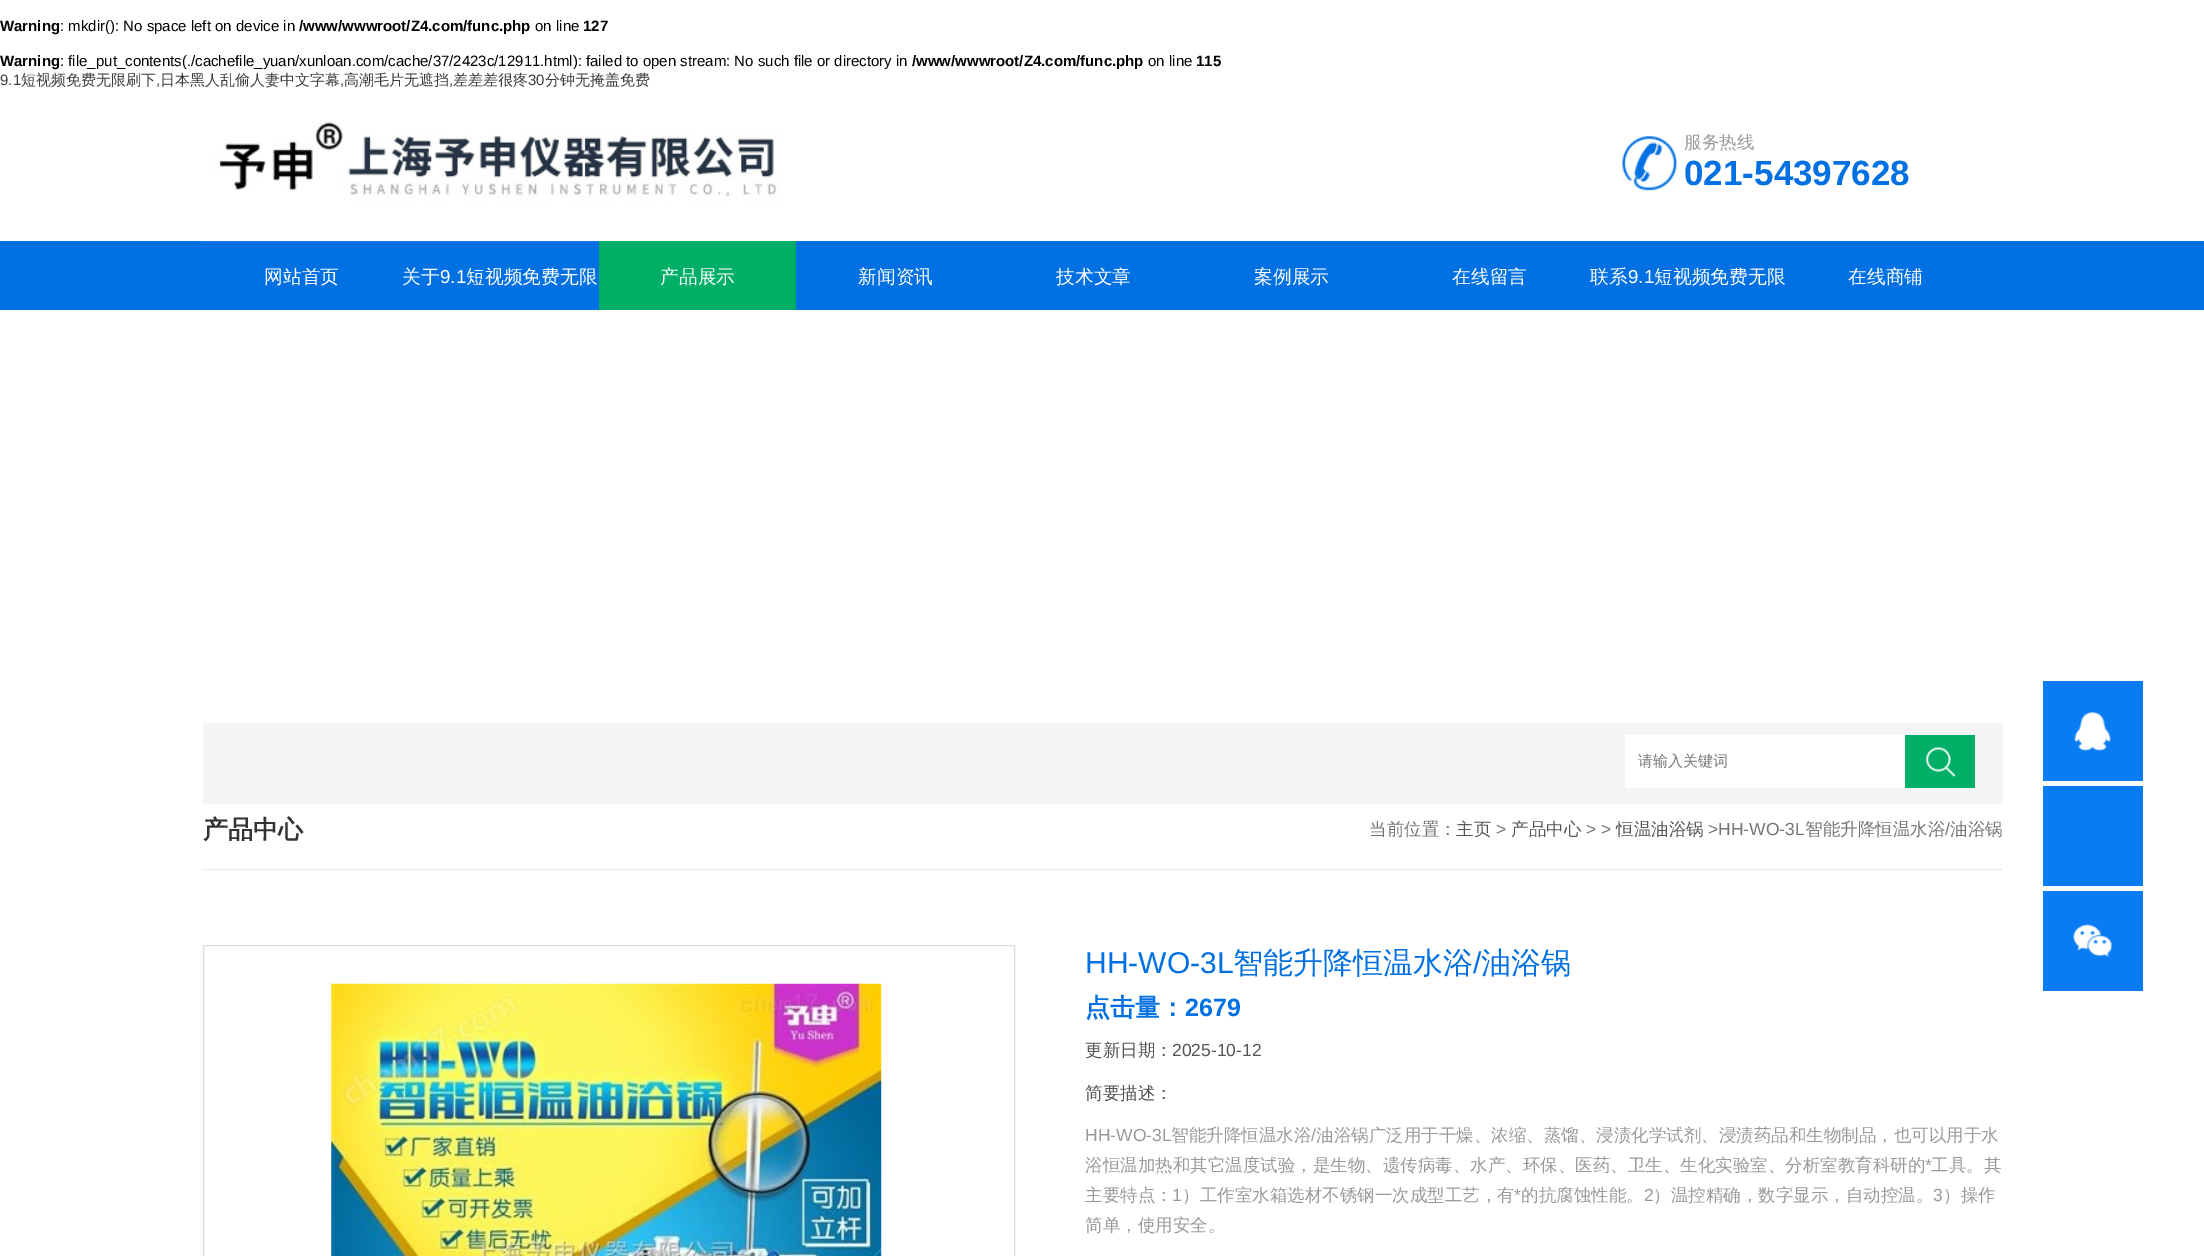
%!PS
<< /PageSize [2204 1256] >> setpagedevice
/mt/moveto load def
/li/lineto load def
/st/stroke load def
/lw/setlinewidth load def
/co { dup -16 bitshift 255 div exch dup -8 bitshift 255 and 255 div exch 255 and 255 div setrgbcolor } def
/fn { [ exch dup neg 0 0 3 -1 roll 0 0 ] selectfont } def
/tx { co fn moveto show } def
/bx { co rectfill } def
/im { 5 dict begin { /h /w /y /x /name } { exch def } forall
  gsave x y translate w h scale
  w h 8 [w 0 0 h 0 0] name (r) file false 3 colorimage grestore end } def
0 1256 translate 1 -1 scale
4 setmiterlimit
0 0 2204 1256 16#FFFFFF bx
0 241 2204 69 16#0170E2 bx
(media/1.raw) 203 122 587 120 im
(media/2.raw) 1622 136 55 55 im
599 241 197 69 16#00AF66 bx
203 723 1800 81 16#F5F5F5 bx
1625 735 280 53 16#FFFFFF bx
1905 735 70 53 16#00AF66 bx
(media/3.raw) 1926 747 29 30 im
2043 681 100 100 16#097CF3 bx
(media/4.raw) 2074 712 37 39 im
2043 786 100 100 16#097CF3 bx
2043 891 100 100 16#097CF3 bx
(media/5.raw) 2073 924 39 33 im
16#DEDEDE co
1.2 lw
[1.25 1.25] 0 setdash
202.5 869.5 mt 2002.5 869.5 li st
16#DDDDDD co
1 lw
[] 0 setdash
203.5 945.5 811 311 rectstroke
(media/6.raw) 331 983 551 273 im
(Warning) 0 31 /LiberationSans-Bold 15 16#000000 tx
(: mkdir\(\): No space left on device in) 60 31 /LiberationSans-Regular 15 16#000000 tx
(/www/wwwroot/Z4.com/func.php) 299 31 /LiberationSans-Bold 15 16#000000 tx
(on line) 535 31 /LiberationSans-Regular 15 16#000000 tx
(127) 583 31 /LiberationSans-Bold 15 16#000000 tx
(Warning) 0 66 /LiberationSans-Bold 15 16#000000 tx
(: file_put_contents\(./cachefile_yuan/xunloan.com/cache/37/2423c/12911.html\): failed to open stream: No such file or directory in) 60 66 /LiberationSans-Regular 15 16#000000 tx
(/www/wwwroot/Z4.com/func.php) 912 66 /LiberationSans-Bold 15 16#000000 tx
(on line) 1148 66 /LiberationSans-Regular 15 16#000000 tx
(115) 1196 66 /LiberationSans-Bold 15 16#000000 tx
(9.1) 0 85 /LiberationSans-Regular 15 16#3A3A3A tx
(短视频免费无限刷下) 21 85 /WenQuanYiZenHei-Medium 15 16#3A3A3A tx
(,) 156 85 /LiberationSans-Regular 15 16#3A3A3A tx
(日本黑人乱偷人妻中文字幕) 160 85 /WenQuanYiZenHei-Medium 15 16#3A3A3A tx
(,) 340 85 /LiberationSans-Regular 15 16#3A3A3A tx
(高潮毛片无遮挡) 344 85 /WenQuanYiZenHei-Medium 15 16#3A3A3A tx
(,) 449 85 /LiberationSans-Regular 15 16#3A3A3A tx
(差差差很疼) 453 85 /WenQuanYiZenHei-Medium 15 16#3A3A3A tx
(30) 528 85 /LiberationSans-Regular 15 16#3A3A3A tx
(分钟无掩盖免费) 545 85 /WenQuanYiZenHei-Medium 15 16#3A3A3A tx
(服务热线) 1684 148 /WenQuanYiZenHei-Medium 17.5 16#999999 tx
(021-54397628) 1684 185 /LiberationSans-Bold 35 16#0170E2 tx
(网站首页) 264 283 /WenQuanYiZenHei-Medium 18.75 16#FFFFFF tx
(关于) 402 283 /WenQuanYiZenHei-Medium 18.75 16#FFFFFF tx
(9.1) 440 283 /LiberationSans-Regular 18.75 16#FFFFFF tx
(短视频免费无限) 466 283 /WenQuanYiZenHei-Medium 18.75 16#FFFFFF tx
(产品展示) 660 283 /WenQuanYiZenHei-Medium 18.75 16#FFFFFF tx
(新闻资讯) 858 283 /WenQuanYiZenHei-Medium 18.75 16#FFFFFF tx
(技术文章) 1056 283 /WenQuanYiZenHei-Medium 18.75 16#FFFFFF tx
(案例展示) 1254 283 /WenQuanYiZenHei-Medium 18.75 16#FFFFFF tx
(在线留言) 1452 283 /WenQuanYiZenHei-Medium 18.75 16#FFFFFF tx
(联系) 1590 283 /WenQuanYiZenHei-Medium 18.75 16#FFFFFF tx
(9.1) 1628 283 /LiberationSans-Regular 18.75 16#FFFFFF tx
(短视频免费无限) 1654 283 /WenQuanYiZenHei-Medium 18.75 16#FFFFFF tx
(在线商铺) 1848 283 /WenQuanYiZenHei-Medium 18.75 16#FFFFFF tx
(请输入关键词) 1638 766 /WenQuanYiZenHei-Medium 15 16#757575 tx
(产品中心) 203 838 /WenQuanYiZenHei-Bold 25 16#333333 tx
(当前位置：) 1369 835 /WenQuanYiZenHei-Medium 17.5 16#757575 tx
(主页) 1456 835 /WenQuanYiZenHei-Medium 17.5 16#555555 tx
(>) 1496 835 /LiberationSans-Regular 17.5 16#757575 tx
(产品中心) 1511 835 /WenQuanYiZenHei-Medium 17.5 16#555555 tx
(> >) 1586 835 /LiberationSans-Regular 17.5 16#757575 tx
(恒温油浴锅) 1616 835 /WenQuanYiZenHei-Medium 17.5 16#555555 tx
(>HH-WO-3L) 1708 835 /LiberationSans-Regular 17.5 16#757575 tx
(智能升降恒温水浴) 1805 835 /WenQuanYiZenHei-Medium 17.5 16#757575 tx
(/) 1945 835 /LiberationSans-Regular 17.5 16#757575 tx
(油浴锅) 1950 835 /WenQuanYiZenHei-Medium 17.5 16#757575 tx
(HH-WO-3L) 1085 973 /LiberationSans-Regular 30 16#0170E2 tx
(智能升降恒温水浴) 1233 973 /WenQuanYiZenHei-Medium 30 16#0170E2 tx
(/) 1473 973 /LiberationSans-Regular 30 16#0170E2 tx
(油浴锅) 1481 973 /WenQuanYiZenHei-Medium 30 16#0170E2 tx
(点击量：) 1085 1016 /WenQuanYiZenHei-Bold 25 16#0170E2 tx
(2679) 1185 1016 /LiberationSans-Bold 25 16#0170E2 tx
(更新日期：) 1085 1056 /WenQuanYiZenHei-Medium 17.5 16#555555 tx
(2025-10-12) 1172 1056 /LiberationSans-Regular 17.5 16#555555 tx
(简要描述：) 1085 1099 /WenQuanYiZenHei-Medium 17.5 16#555555 tx
(HH-WO-3L) 1085 1141 /LiberationSans-Regular 17.5 16#999999 tx
(智能升降恒温水浴) 1171 1141 /WenQuanYiZenHei-Medium 17.5 16#999999 tx
(/) 1311 1141 /LiberationSans-Regular 17.5 16#999999 tx
(油浴锅广泛用于干燥、浓缩、蒸馏、浸渍化学试剂、浸渍药品和生物制品，也可以用于水) 1316 1141 /WenQuanYiZenHei-Medium 17.5 16#999999 tx
(浴恒温加热和其它温度试验，是生物、遗传病毒、水产、环保、医药、卫生、生化实验室、分析室教育科研的) 1085 1171 /WenQuanYiZenHei-Medium 17.5 16#999999 tx
(*) 1925 1171 /LiberationSans-Regular 17.5 16#999999 tx
(工具。其) 1931 1171 /WenQuanYiZenHei-Medium 17.5 16#999999 tx
(主要特点：) 1085 1201 /WenQuanYiZenHei-Medium 17.5 16#999999 tx
(1) 1172 1201 /LiberationSans-Regular 17.5 16#999999 tx
(）工作室水箱选材不锈钢一次成型工艺，有) 1182 1201 /WenQuanYiZenHei-Medium 17.5 16#999999 tx
(*) 1514 1201 /LiberationSans-Regular 17.5 16#999999 tx
(的抗腐蚀性能。) 1521 1201 /WenQuanYiZenHei-Medium 17.5 16#999999 tx
(2) 1644 1201 /LiberationSans-Regular 17.5 16#999999 tx
(）温控精确，数字显示，自动控温。) 1653 1201 /WenQuanYiZenHei-Medium 17.5 16#999999 tx
(3) 1933 1201 /LiberationSans-Regular 17.5 16#999999 tx
(）操作) 1943 1201 /WenQuanYiZenHei-Medium 17.5 16#999999 tx
(简单，使用安全。) 1085 1231 /WenQuanYiZenHei-Medium 17.5 16#999999 tx
showpage
